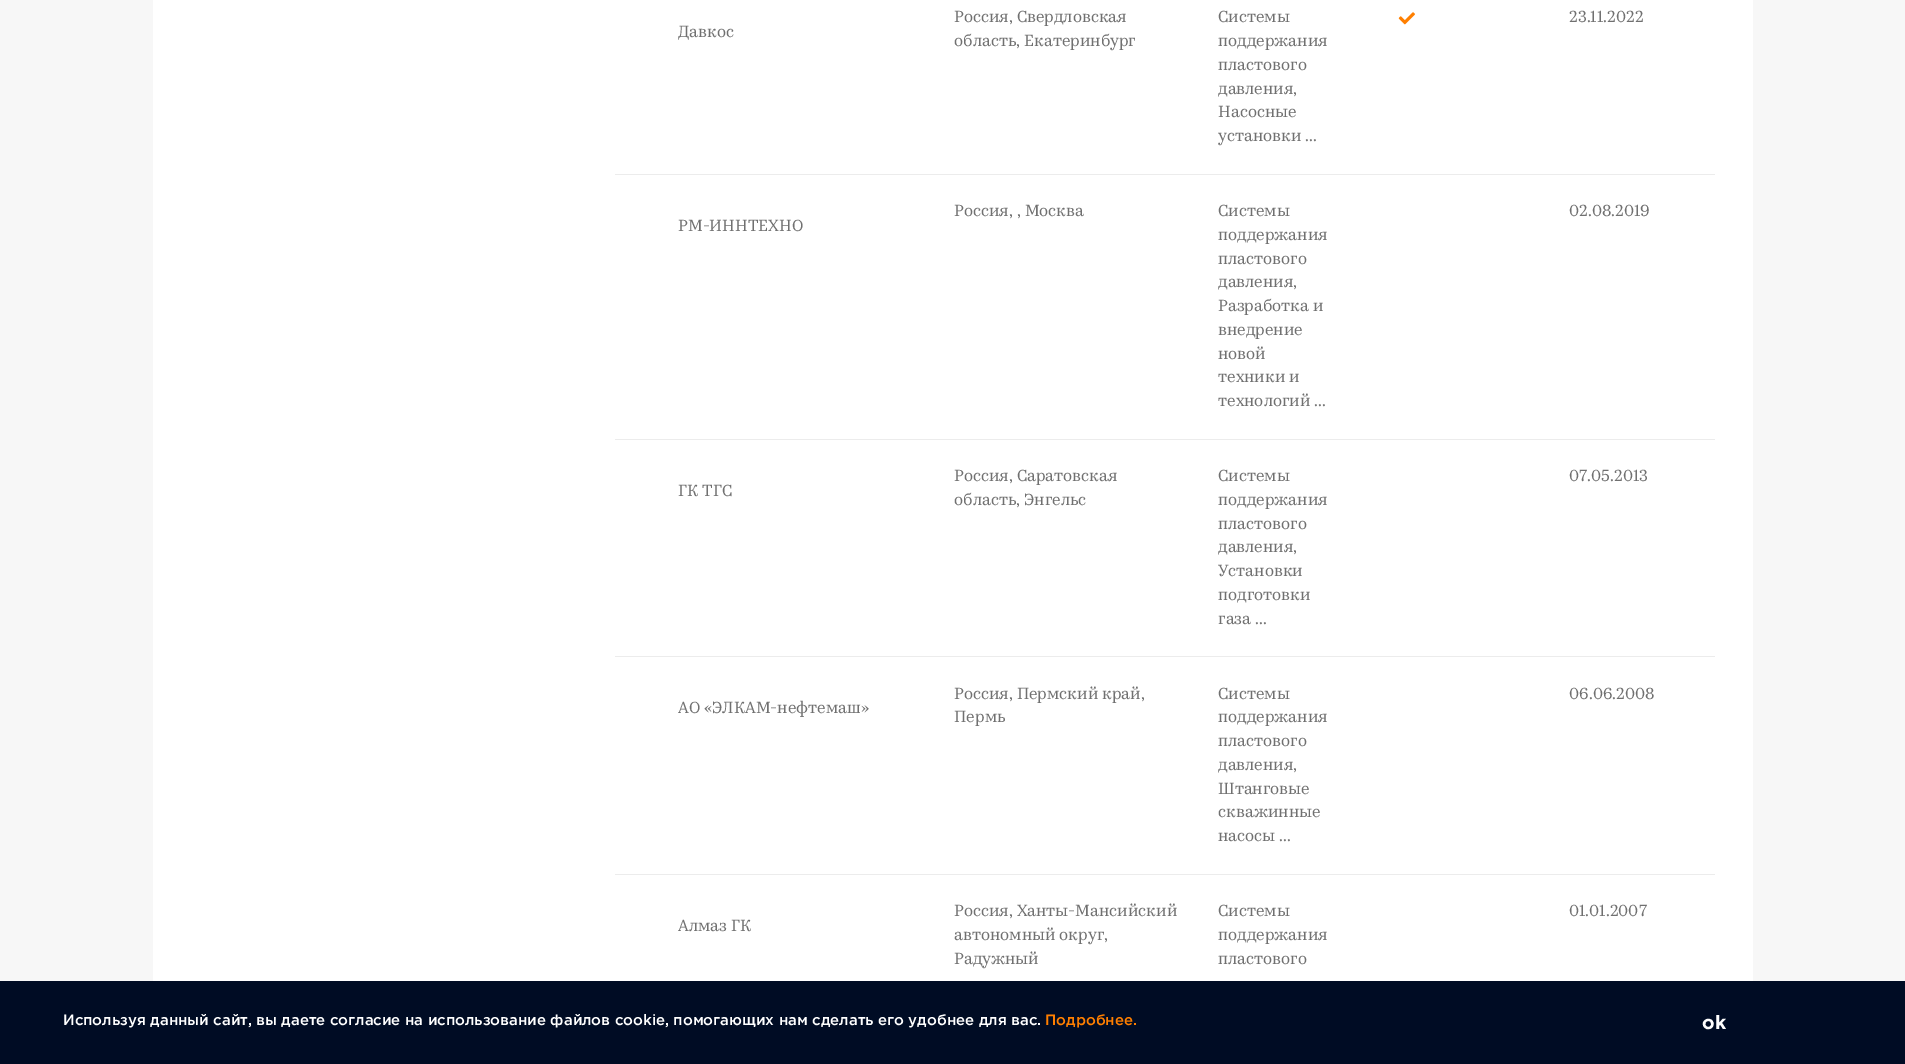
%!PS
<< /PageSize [1905 1064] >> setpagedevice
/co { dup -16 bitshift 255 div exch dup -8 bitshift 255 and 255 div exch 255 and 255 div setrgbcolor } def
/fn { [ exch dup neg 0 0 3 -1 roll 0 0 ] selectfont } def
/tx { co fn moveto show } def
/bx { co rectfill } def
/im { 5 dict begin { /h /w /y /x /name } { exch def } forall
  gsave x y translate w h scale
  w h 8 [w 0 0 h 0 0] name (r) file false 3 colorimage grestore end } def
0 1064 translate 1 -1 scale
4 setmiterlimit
0 0 1905 1064 16#F7F7F7 bx
153 0 1600 981 16#FFFFFF bx
615 174 1100 1 16#ECECEC bx
(media/1.raw) 1398 12 17 13 im
615 439 1100 1 16#ECECEC bx
615 656 1100 1 16#ECECEC bx
615 874 1100 1 16#ECECEC bx
0 981 1905 83 16#000C24 bx
(Россия, Свердловская) 954 22 /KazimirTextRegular-Regular 16.25 16#707070 tx
(область, Екатеринбург) 954 46 /KazimirTextRegular-Regular 16.25 16#707070 tx
(Системы) 1218 22 /KazimirTextRegular-Regular 16.25 16#707070 tx
(поддержания) 1218 46 /KazimirTextRegular-Regular 16.25 16#707070 tx
(пластового) 1218 70 /KazimirTextRegular-Regular 16.25 16#707070 tx
(давления,) 1218 94 /KazimirTextRegular-Regular 16.25 16#707070 tx
(Насосные) 1218 117 /KazimirTextRegular-Regular 16.25 16#707070 tx
(установки ...) 1218 141 /KazimirTextRegular-Regular 16.25 16#707070 tx
(23.11.2022) 1569 22 /KazimirTextRegular-Regular 16.25 16#707070 tx
(Давкос) 678 37 /KazimirTextRegular-Regular 16.25 16#707070 tx
(Россия, , Москва) 954 216 /KazimirTextRegular-Regular 16.25 16#707070 tx
(Системы) 1218 216 /KazimirTextRegular-Regular 16.25 16#707070 tx
(поддержания) 1218 240 /KazimirTextRegular-Regular 16.25 16#707070 tx
(пластового) 1218 264 /KazimirTextRegular-Regular 16.25 16#707070 tx
(давления,) 1218 287 /KazimirTextRegular-Regular 16.25 16#707070 tx
(Разработка и) 1218 311 /KazimirTextRegular-Regular 16.25 16#707070 tx
(внедрение) 1218 335 /KazimirTextRegular-Regular 16.25 16#707070 tx
(новой) 1218 359 /KazimirTextRegular-Regular 16.25 16#707070 tx
(техники и) 1218 382 /KazimirTextRegular-Regular 16.25 16#707070 tx
(технологий ...) 1218 406 /KazimirTextRegular-Regular 16.25 16#707070 tx
(02.08.2019) 1569 216 /KazimirTextRegular-Regular 16.25 16#707070 tx
(РМ-ИННТЕХНО) 678 231 /KazimirTextRegular-Regular 16.25 16#707070 tx
(Россия, Саратовская) 954 481 /KazimirTextRegular-Regular 16.25 16#707070 tx
(область, Энгельс) 954 505 /KazimirTextRegular-Regular 16.25 16#707070 tx
(Системы) 1218 481 /KazimirTextRegular-Regular 16.25 16#707070 tx
(поддержания) 1218 505 /KazimirTextRegular-Regular 16.25 16#707070 tx
(пластового) 1218 529 /KazimirTextRegular-Regular 16.25 16#707070 tx
(давления,) 1218 552 /KazimirTextRegular-Regular 16.25 16#707070 tx
(Установки) 1218 576 /KazimirTextRegular-Regular 16.25 16#707070 tx
(подготовки) 1218 600 /KazimirTextRegular-Regular 16.25 16#707070 tx
(газа ...) 1218 624 /KazimirTextRegular-Regular 16.25 16#707070 tx
(07.05.2013) 1569 481 /KazimirTextRegular-Regular 16.25 16#707070 tx
(ГК ТГС) 678 496 /KazimirTextRegular-Regular 16.25 16#707070 tx
(Россия, Пермский край,) 954 699 /KazimirTextRegular-Regular 16.25 16#707070 tx
(Пермь) 954 722 /KazimirTextRegular-Regular 16.25 16#707070 tx
(Системы) 1218 699 /KazimirTextRegular-Regular 16.25 16#707070 tx
(поддержания) 1218 722 /KazimirTextRegular-Regular 16.25 16#707070 tx
(пластового) 1218 746 /KazimirTextRegular-Regular 16.25 16#707070 tx
(давления,) 1218 770 /KazimirTextRegular-Regular 16.25 16#707070 tx
(Штанговые) 1218 794 /KazimirTextRegular-Regular 16.25 16#707070 tx
(скважинные) 1218 817 /KazimirTextRegular-Regular 16.25 16#707070 tx
(насосы ...) 1218 841 /KazimirTextRegular-Regular 16.25 16#707070 tx
(06.06.2008) 1569 699 /KazimirTextRegular-Regular 16.25 16#707070 tx
(АО «ЭЛКАМ-нефтемаш») 678 713 /KazimirTextRegular-Regular 16.25 16#707070 tx
(Россия, Ханты-Мансийский) 954 916 /KazimirTextRegular-Regular 16.25 16#707070 tx
(автономный округ,) 954 940 /KazimirTextRegular-Regular 16.25 16#707070 tx
(Радужный) 954 964 /KazimirTextRegular-Regular 16.25 16#707070 tx
(Системы) 1218 916 /KazimirTextRegular-Regular 16.25 16#707070 tx
(поддержания) 1218 940 /KazimirTextRegular-Regular 16.25 16#707070 tx
(пластового) 1218 964 /KazimirTextRegular-Regular 16.25 16#707070 tx
(01.01.2007) 1569 916 /KazimirTextRegular-Regular 16.25 16#707070 tx
(Алмаз ГК) 678 931 /KazimirTextRegular-Regular 16.25 16#707070 tx
(Используя данный сайт, вы даете согласие на использование файлов cookie, помогающих нам сделать его удобнее для вас.) 63 1025 /Gotham-Regular 15 16#FFFFFF tx
(Подробнее.) 1045 1025 /Gotham-Regular 15 16#FF7F00 tx
(ok) 1702 1029 /Gotham-Bold 19 16#FFFFFF tx
showpage
